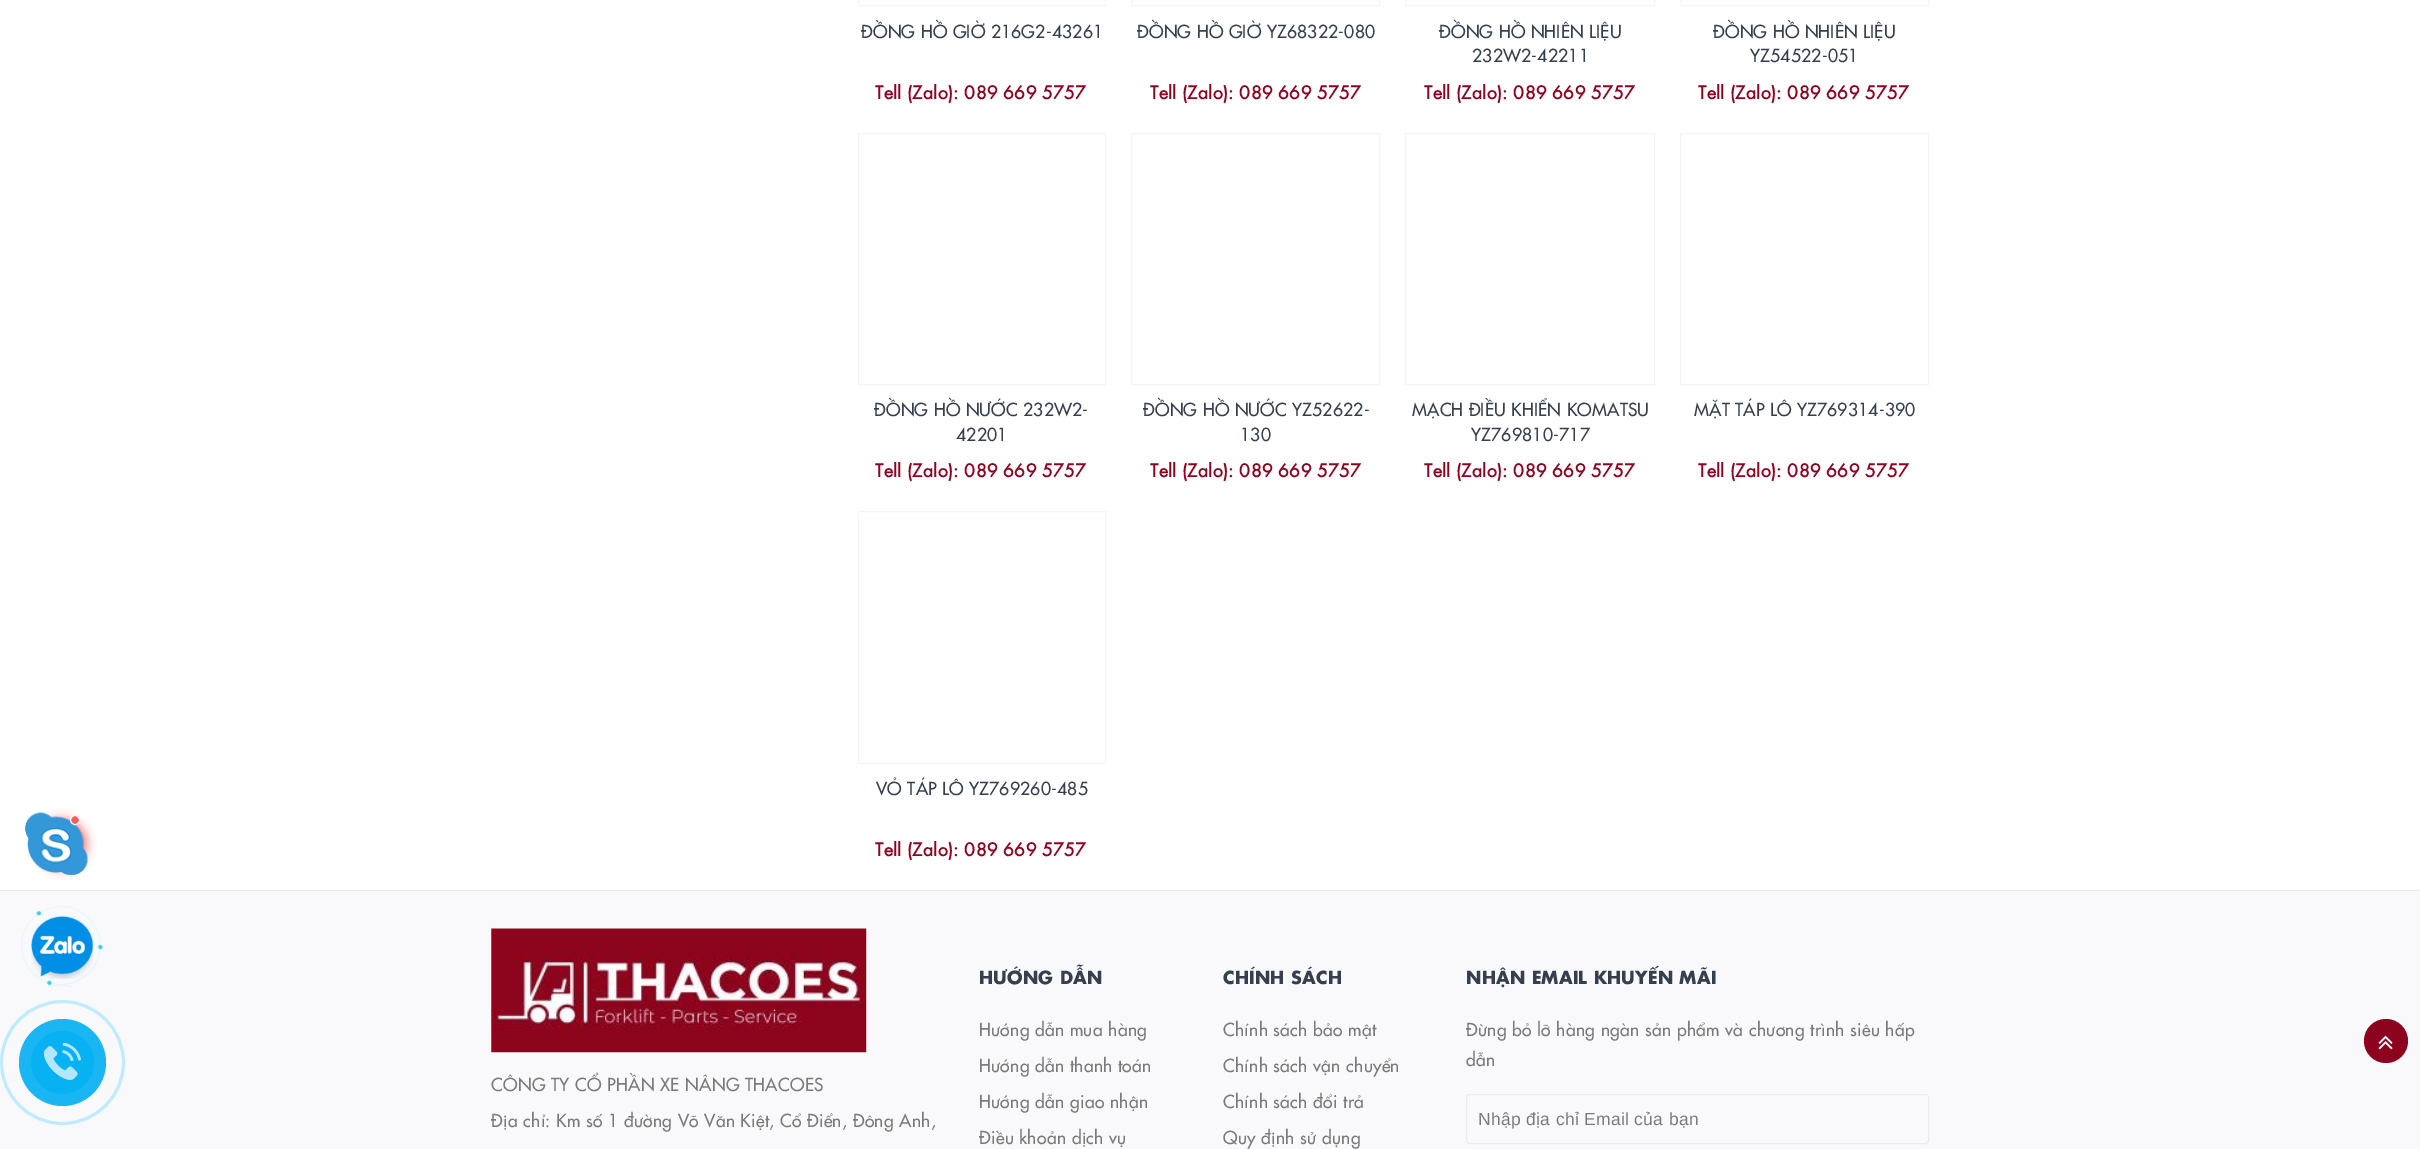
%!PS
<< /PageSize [2420 1149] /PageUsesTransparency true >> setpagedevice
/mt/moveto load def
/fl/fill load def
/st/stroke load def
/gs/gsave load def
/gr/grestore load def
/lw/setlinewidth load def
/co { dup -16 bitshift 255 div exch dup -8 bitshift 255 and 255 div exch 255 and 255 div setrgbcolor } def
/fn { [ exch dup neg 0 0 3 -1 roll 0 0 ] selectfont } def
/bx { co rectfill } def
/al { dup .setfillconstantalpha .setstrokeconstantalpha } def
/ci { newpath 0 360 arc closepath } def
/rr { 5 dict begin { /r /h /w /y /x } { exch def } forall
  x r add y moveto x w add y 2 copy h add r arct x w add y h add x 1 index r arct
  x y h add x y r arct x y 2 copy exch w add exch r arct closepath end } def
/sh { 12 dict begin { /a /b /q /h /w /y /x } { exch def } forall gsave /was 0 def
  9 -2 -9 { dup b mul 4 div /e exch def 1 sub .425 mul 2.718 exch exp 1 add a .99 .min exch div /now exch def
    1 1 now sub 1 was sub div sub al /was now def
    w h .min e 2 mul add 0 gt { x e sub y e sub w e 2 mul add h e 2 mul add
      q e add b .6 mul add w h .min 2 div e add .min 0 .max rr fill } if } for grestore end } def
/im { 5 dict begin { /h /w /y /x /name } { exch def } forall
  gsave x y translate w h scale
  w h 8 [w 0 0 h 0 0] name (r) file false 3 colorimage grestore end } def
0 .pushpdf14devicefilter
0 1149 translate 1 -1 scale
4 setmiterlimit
0 0 2420 1149 16#FFFFFF bx
16#FF5D5D co
36 819 50 50 25 5 1 sh
(media/1.raw) 25 812 63 63 im
75 820 4.5 ci gs fl gr
16#FFFFFF co
st
16#F5F5F5 co
858.5 -.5 247 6 rectstroke
1131.5 -.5 248 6 rectstroke
1405.5 -.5 249 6 rectstroke
1680.5 -.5 248 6 rectstroke
858.5 133.5 247 251 rectstroke
1131.5 133.5 248 251 rectstroke
1405.5 133.5 249 251 rectstroke
1680.5 133.5 248 251 rectstroke
858.5 511.5 247 252 rectstroke
0 891 2420 258 16#F9F9FB bx
0 890 2420 1 16#EBEBEB bx
(media/2.raw) 21 906 83 82 im
(media/3.raw) 31 916 63 63 im
16#BFEBFC co
3 lw
62.5 1062.5 61 ci st
16#19B6F3 co
62.5 1062.5 43.5 ci fl
16#08B1F2 co
62.5 1062.5 31.5 ci fl
(media/4.raw) 44 1043 37 37 im
(media/5.raw) 491 928 376 125 im
16#EBEBEB co
1 lw
1466.5 1094.5 462 49 3.5 rr st
16#8D021F co
2386 1041 22 ci fl
(media/6.raw) 2378 1035 15 15 im
/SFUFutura-Regular 17.5 fn
16#363F4D co
861 38 mt .2 0 (ĐỒNG HỒ GIỜ 216G2-43261) ashow
/SFUFutura-Bold 17.5 fn
16#8D021F co
875 99 mt .3 0 (Tell \(Zalo\): 089 669 5757) ashow
/SFUFutura-Regular 17.5 fn
16#363F4D co
1137 38 mt .2 0 (ĐỒNG HỒ GIỜ YZ68322-080) ashow
/SFUFutura-Bold 17.5 fn
16#8D021F co
1150 99 mt .3 0 (Tell \(Zalo\): 089 669 5757) ashow
/SFUFutura-Regular 17.5 fn
16#363F4D co
1439 38 mt .2 0 (ĐỒNG HỒ NHIÊN LIỆU) ashow
1472 62 mt .2 0 (232W2-42211) ashow
/SFUFutura-Bold 17.5 fn
16#8D021F co
1424 99 mt .3 0 (Tell \(Zalo\): 089 669 5757) ashow
/SFUFutura-Regular 17.5 fn
16#363F4D co
1713 38 mt .2 0 (ĐỒNG HỒ NHIÊN LIỆU) ashow
1750 62 mt .2 0 (YZ54522-051) ashow
/SFUFutura-Bold 17.5 fn
16#8D021F co
1698 99 mt .3 0 (Tell \(Zalo\): 089 669 5757) ashow
/SFUFutura-Regular 17.5 fn
16#363F4D co
874 416 mt .2 0 (ĐỒNG HỒ NƯỚC 232W2-) ashow
956 441 mt .2 0 (42201) ashow
/SFUFutura-Bold 17.5 fn
16#8D021F co
875 477 mt .3 0 (Tell \(Zalo\): 089 669 5757) ashow
/SFUFutura-Regular 17.5 fn
16#363F4D co
1143 416 mt .2 0 (ĐỒNG HỒ NƯỚC YZ52622-) ashow
1240 441 mt .2 0 (130) ashow
/SFUFutura-Bold 17.5 fn
16#8D021F co
1150 477 mt .3 0 (Tell \(Zalo\): 089 669 5757) ashow
gs
1405 398 250 50 rectclip
/SFUFutura-Regular 17.5 fn
16#363F4D co
1412 416 mt .2 0 (MẠCH ĐIỀU KHIỂN KOMATSU) ashow
gr
/SFUFutura-Regular 17.5 fn
16#363F4D co
1471 441 mt .2 0 (YZ769810-717) ashow
/SFUFutura-Bold 17.5 fn
16#8D021F co
1424 477 mt .3 0 (Tell \(Zalo\): 089 669 5757) ashow
/SFUFutura-Regular 17.5 fn
16#363F4D co
1694 416 mt .2 0 (MẶT TÁP LÔ YZ769314-390) ashow
/SFUFutura-Bold 17.5 fn
16#8D021F co
1698 477 mt .3 0 (Tell \(Zalo\): 089 669 5757) ashow
/SFUFutura-Regular 17.5 fn
16#363F4D co
876 795 mt .2 0 (VỎ TÁP LÔ YZ769260-485) ashow
/SFUFutura-Bold 17.5 fn
16#8D021F co
875 856 mt .3 0 (Tell \(Zalo\): 089 669 5757) ashow
/SFUFutura-Regular 17.5 fn
16#7A7A7A co
491 1091 mt .3 0 (CÔNG TY CỔ PHẦN XE NÂNG THACOES) ashow
491 1127 mt .3 0 (Địa chỉ: Km số 1 đường Võ Văn Kiệt, Cổ Điển, Đông Anh,) ashow
/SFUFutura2-Bold 17.5 fn
16#363F4D co
979 984 mt .2 0 (HƯỚNG DẪN) ashow
/SFUFutura-Regular 17.5 fn
16#7A7A7A co
979 1036 mt .3 0 (Hướng dẫn mua hàng) ashow
979 1072 mt .3 0 (Hướng dẫn thanh toán) ashow
979 1108 mt .3 0 (Hướng dẫn giao nhận) ashow
979 1144 mt .3 0 (Điều khoản dịch vụ) ashow
/SFUFutura2-Bold 17.5 fn
16#363F4D co
1223 984 mt .2 0 (CHÍNH SÁCH) ashow
/SFUFutura-Regular 17.5 fn
16#7A7A7A co
1223 1036 mt .3 0 (Chính sách bảo mật) ashow
1223 1072 mt .3 0 (Chính sách vận chuyển) ashow
1223 1108 mt .3 0 (Chính sách đổi trả) ashow
1223 1144 mt .3 0 (Quy định sử dụng) ashow
/SFUFutura2-Bold 17.5 fn
16#363F4D co
1466 984 mt .2 0 (NHẬN EMAIL KHUYẾN MÃI) ashow
/SFUFutura-Regular 17.5 fn
16#7A7A7A co
1466 1036 mt .3 0 (Đừng bỏ lỡ hàng ngàn sản phẩm và chương trình siêu hấp) ashow
1466 1066 mt .3 0 (dẫn) ashow
/LiberationSans-Regular 17.5 fn
1478 1125 mt .3 0 (Nhập địa chỉ Email của bạn) ashow
.poppdf14devicefilter showpage
